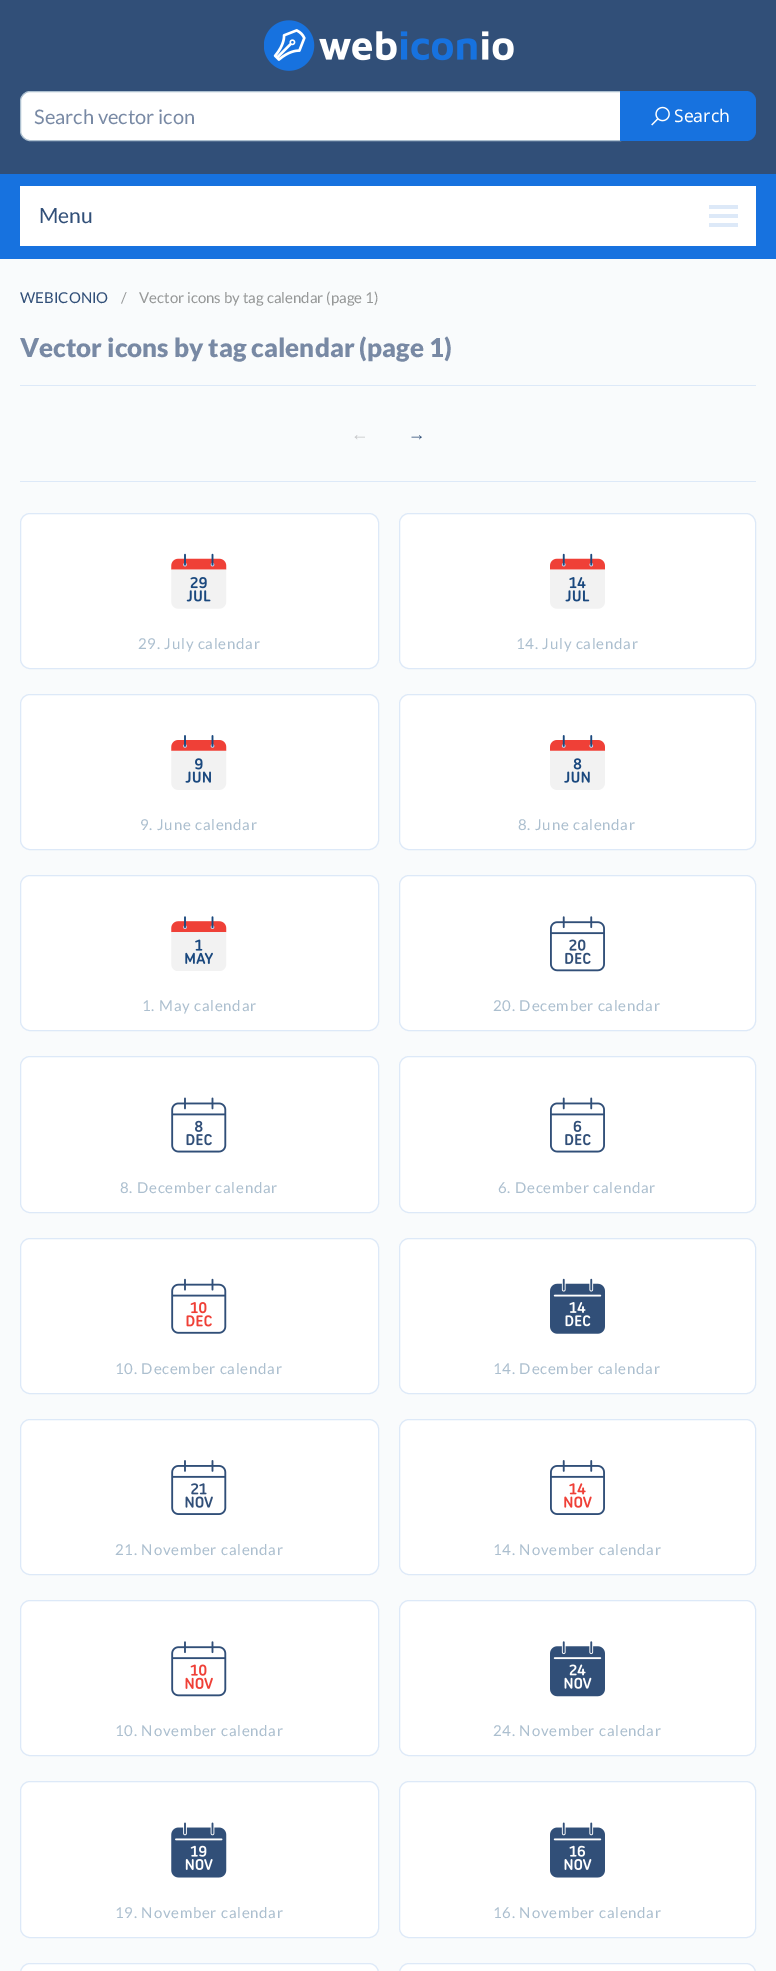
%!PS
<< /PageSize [776 1971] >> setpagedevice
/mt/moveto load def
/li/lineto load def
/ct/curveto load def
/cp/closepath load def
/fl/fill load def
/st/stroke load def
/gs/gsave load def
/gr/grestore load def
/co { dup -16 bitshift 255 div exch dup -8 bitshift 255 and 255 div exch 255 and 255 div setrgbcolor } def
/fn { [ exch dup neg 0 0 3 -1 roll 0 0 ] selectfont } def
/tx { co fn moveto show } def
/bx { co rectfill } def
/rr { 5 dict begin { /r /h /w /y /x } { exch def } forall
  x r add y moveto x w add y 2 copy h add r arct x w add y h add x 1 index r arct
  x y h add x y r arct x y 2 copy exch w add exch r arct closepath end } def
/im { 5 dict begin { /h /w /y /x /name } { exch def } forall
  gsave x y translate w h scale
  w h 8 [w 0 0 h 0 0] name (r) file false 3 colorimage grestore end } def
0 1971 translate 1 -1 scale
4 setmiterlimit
0 0 776 1971 16#F9FBFC bx
0 0 776 174 16#314F78 bx
(media/1.raw) 264 20 250 51 im
16#FFFFFF co
30 91.5 mt 620.5 91.5 li 620.5 140.5 li 30 140.5 li 25 140.5 20.5 136 20.5 131 ct 20.5 101 li 20.5 96 25 91.5 30 91.5 ct cp gs fl gr
16#ACBFCF co
st
16#1772DF co
620 91 mt 746 91 li 751.5 91 756 95.5 756 101 ct 756 131 li 756 136.5 751.5 141 746 141 ct 620 141 li cp fl
(media/2.raw) 651 106 19 20 im
0 174 776 85 16#1772DF bx
20 186 736 60 16#FFFFFF bx
709 214 29 4 16#DDE9F8 bx
709 205 29 4 16#DDE9F8 bx
709 223 29 4 16#DDE9F8 bx
20 385 736 1 16#DDE9F8 bx
20 481 736 1 16#DDE9F8 bx
16#FFFFFF co
20.5 513.5 358 155 9.5 rr gs fl gr
16#DDE9F8 co
st
(media/3.raw) 171 553 56 56 im
16#FFFFFF co
399.5 513.5 356 155 9.5 rr gs fl gr
16#DDE9F8 co
st
(media/4.raw) 550 553 55 56 im
16#FFFFFF co
20.5 694.5 358 155 9.5 rr gs fl gr
16#DDE9F8 co
st
(media/5.raw) 171 735 56 55 im
16#FFFFFF co
399.5 694.5 356 155 9.5 rr gs fl gr
16#DDE9F8 co
st
(media/6.raw) 550 735 55 55 im
16#FFFFFF co
20.5 875.5 358 155 9.5 rr gs fl gr
16#DDE9F8 co
st
(media/7.raw) 171 916 56 55 im
16#FFFFFF co
399.5 875.5 356 155 9.5 rr gs fl gr
16#DDE9F8 co
st
(media/8.raw) 550 916 55 56 im
16#FFFFFF co
20.5 1056.5 358 156 9.5 rr gs fl gr
16#DDE9F8 co
st
(media/9.raw) 171 1097 56 56 im
16#FFFFFF co
399.5 1056.5 356 156 9.5 rr gs fl gr
16#DDE9F8 co
st
(media/10.raw) 550 1097 55 56 im
16#FFFFFF co
20.5 1238.5 358 155 9.5 rr gs fl gr
16#DDE9F8 co
st
(media/11.raw) 171 1278 56 56 im
16#FFFFFF co
399.5 1238.5 356 155 9.5 rr gs fl gr
16#DDE9F8 co
st
(media/12.raw) 550 1278 55 56 im
16#FFFFFF co
20.5 1419.5 358 155 9.5 rr gs fl gr
16#DDE9F8 co
st
(media/13.raw) 171 1460 56 55 im
16#FFFFFF co
399.5 1419.5 356 155 9.5 rr gs fl gr
16#DDE9F8 co
st
(media/14.raw) 550 1460 55 55 im
16#FFFFFF co
20.5 1600.5 358 155 9.5 rr gs fl gr
16#DDE9F8 co
st
(media/15.raw) 171 1641 56 56 im
16#FFFFFF co
399.5 1600.5 356 155 9.5 rr gs fl gr
16#DDE9F8 co
st
(media/16.raw) 550 1641 55 56 im
16#FFFFFF co
20.5 1781.5 358 156 9.5 rr gs fl gr
16#DDE9F8 co
st
(media/17.raw) 171 1822 56 56 im
16#FFFFFF co
399.5 1781.5 356 156 9.5 rr gs fl gr
16#DDE9F8 co
st
(media/18.raw) 550 1822 55 56 im
16#FFFFFF co
20.5 1963.5 358 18 9.5 rr gs fl gr
16#DDE9F8 co
st
16#FFFFFF co
399.5 1963.5 356 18 9.5 rr gs fl gr
16#DDE9F8 co
st
(Search vector icon) 34 124 /Lato-Regular 20 16#7889A4 tx
(Search) 674 122 /NotoSans-Regular 17.5 16#FFFFFF tx
(Menu) 39 223 /Lato-Regular 21 16#314F78 tx
(WEBICONIO) 20 303 /Lato-Regular 15 16#314F78 tx
(/) 121 303 /Lato-Regular 15 16#959797 tx
(Vector icons by tag calendar \(page 1\)) 139 303 /Lato-Regular 15 16#959797 tx
(Vector icons by tag calendar \(page 1\)) 20 357 /Lato-Black 26 16#7889A4 tx
(←) 351 440 /LiberationSans-Regular 17.5 16#C6C7C9 tx
(→) 408 440 /LiberationSans-Regular 17.5 16#314F78 tx
/Lato-Regular 15 fn
16#ACBFCF co
138 649 mt .75 0 (29. July calendar) ashow
516 649 mt .75 0 (14. July calendar) ashow
140 830 mt .75 0 (9. June calendar) ashow
518 830 mt .75 0 (8. June calendar) ashow
142 1011 mt .75 0 (1. May calendar) ashow
493 1011 mt .75 0 (20. December calendar) ashow
120 1193 mt .75 0 (8. December calendar) ashow
498 1193 mt .75 0 (6. December calendar) ashow
115 1374 mt .75 0 (10. December calendar) ashow
493 1374 mt .75 0 (14. December calendar) ashow
115 1555 mt .75 0 (21. November calendar) ashow
493 1555 mt .75 0 (14. November calendar) ashow
115 1736 mt .75 0 (10. November calendar) ashow
493 1736 mt .75 0 (24. November calendar) ashow
115 1918 mt .75 0 (19. November calendar) ashow
493 1918 mt .75 0 (16. November calendar) ashow
showpage
